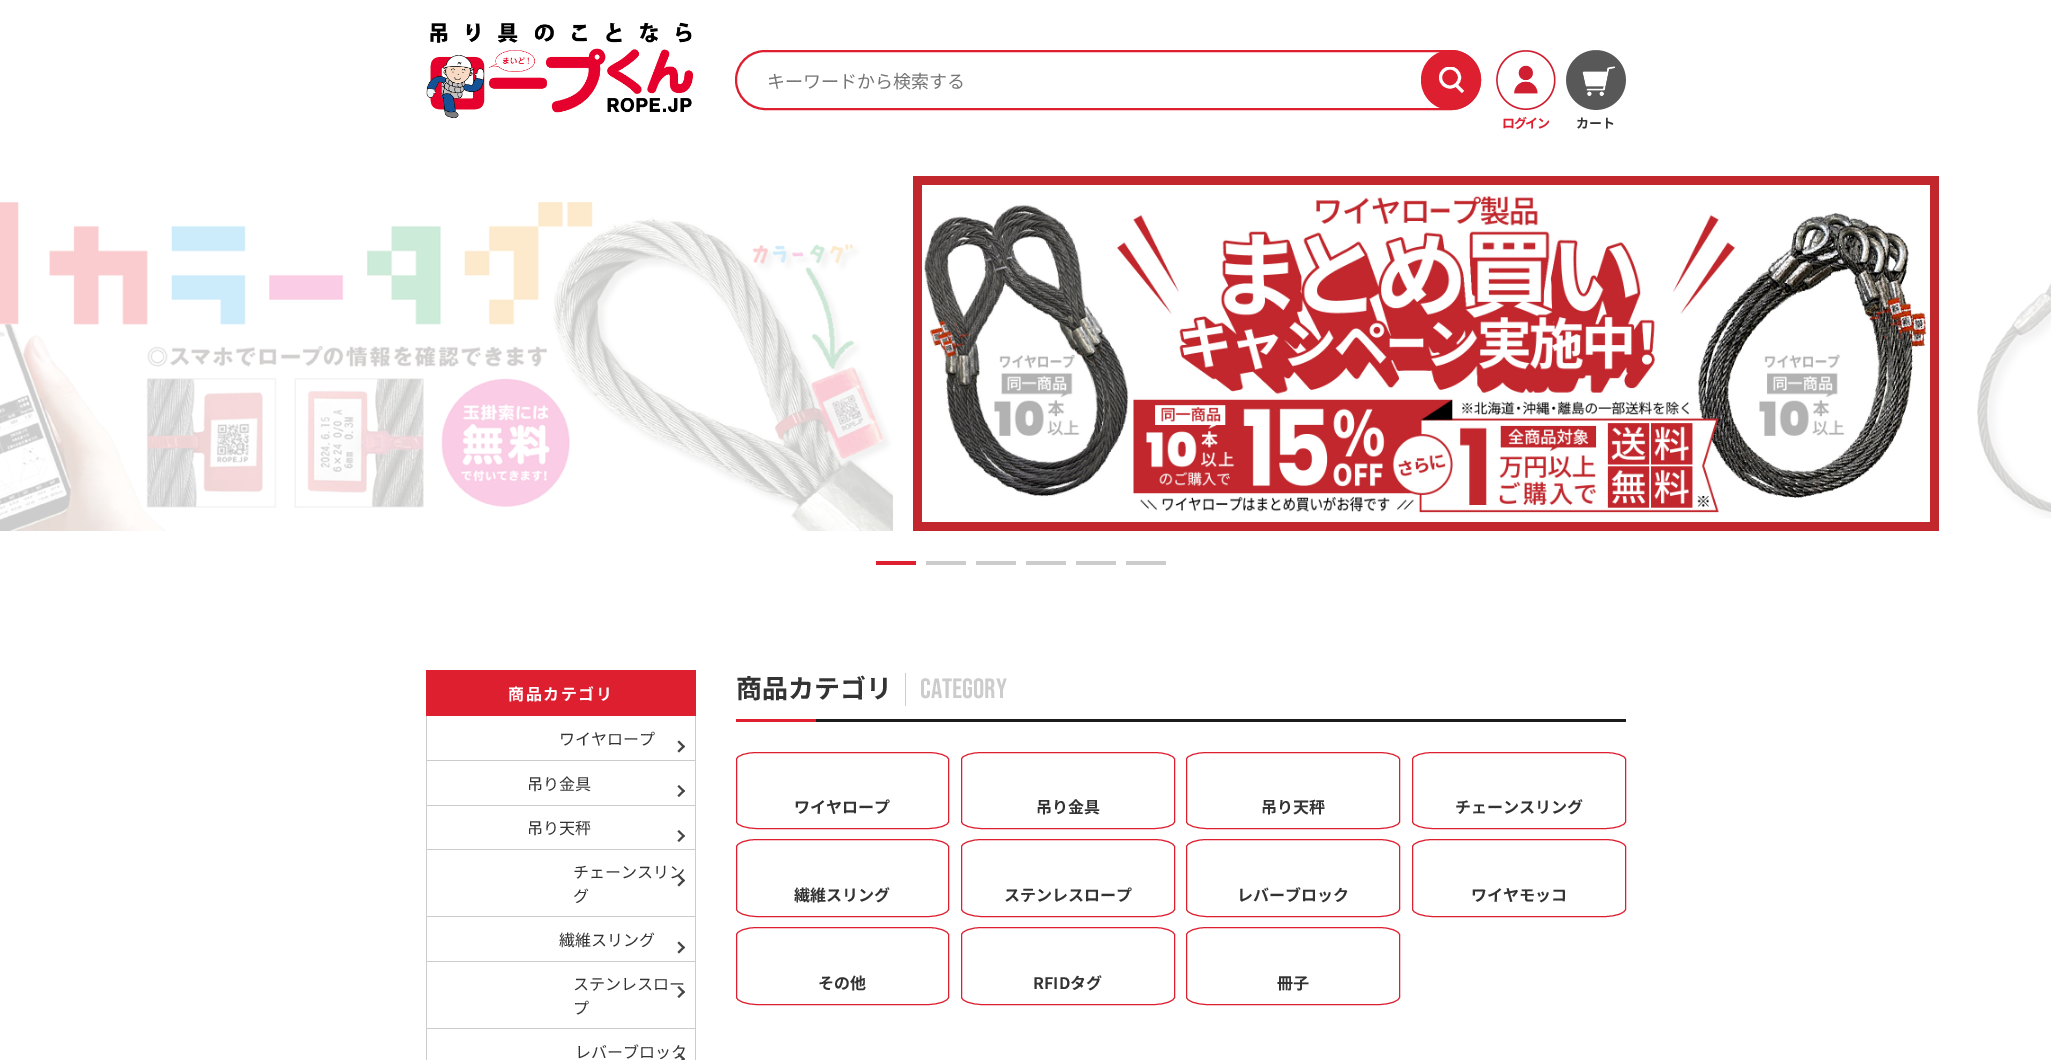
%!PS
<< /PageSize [2051 1060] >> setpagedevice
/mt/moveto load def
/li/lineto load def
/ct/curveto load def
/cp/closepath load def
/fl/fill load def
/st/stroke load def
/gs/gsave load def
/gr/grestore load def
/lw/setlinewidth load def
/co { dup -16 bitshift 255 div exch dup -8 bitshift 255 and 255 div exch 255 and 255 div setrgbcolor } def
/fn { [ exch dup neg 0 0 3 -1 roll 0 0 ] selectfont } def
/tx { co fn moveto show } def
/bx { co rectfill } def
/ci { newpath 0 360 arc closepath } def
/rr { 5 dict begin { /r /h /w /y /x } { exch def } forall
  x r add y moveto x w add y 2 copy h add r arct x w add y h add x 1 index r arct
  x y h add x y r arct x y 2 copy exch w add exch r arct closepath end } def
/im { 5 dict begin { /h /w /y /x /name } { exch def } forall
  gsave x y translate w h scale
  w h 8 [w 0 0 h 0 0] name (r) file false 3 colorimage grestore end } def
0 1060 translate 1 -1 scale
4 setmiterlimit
0 0 2051 1060 16#FFFFFF bx
(media/1.raw) 426 22 268 97 im
16#DD1F30 co
2 lw
736 51 744 58 29 rr st
1451 80 30 ci fl
gs
1439 67 25 26 rectclip
16#FFFFFF co
3 lw
1450 77.5 9.5 ci st
gr
16#FFFFFF co
3 lw
1455.5 84.5 mt 1463 92 li st
(media/2.raw) 1496 50 60 60 im
(media/3.raw) 1566 50 60 60 im
(media/4.raw) 0 202 893 329 im
(media/5.raw) 913 176 1026 355 im
(media/6.raw) 1977 283 74 236 im
876 561 40 4 16#DD1F30 bx
926 561 40 4 16#CCCCCC bx
976 561 40 4 16#CCCCCC bx
1026 561 40 4 16#CCCCCC bx
1076 561 40 4 16#CCCCCC bx
1126 561 40 4 16#CCCCCC bx
426 670 270 46 16#DD1F30 bx
695 716 1 344 16#CCCCCC bx
426 760 270 1 16#CCCCCC bx
426 716 1 45 16#CCCCCC bx
16#454545 co
679 740.5 mt 685 746.5 li 683.5 748 li 677.5 742 li cp fl
683.5 745 mt 685 746.5 li 679 752.5 li 677.5 751 li cp fl
426 805 270 1 16#CCCCCC bx
426 761 1 45 16#CCCCCC bx
16#454545 co
679 785 mt 685 791 li 683.5 792.5 li 677.5 786.5 li cp fl
683.5 789.5 mt 685 791 li 679 797 li 677.5 795.5 li cp fl
426 849 270 1 16#CCCCCC bx
426 806 1 44 16#CCCCCC bx
16#454545 co
679 830 mt 685 836 li 683.5 837 li 677.5 831.5 li cp fl
683.5 834.5 mt 685 836 li 679 842 li 677.5 840.5 li cp fl
426 916 270 1 16#CCCCCC bx
426 850 1 67 16#CCCCCC bx
426 961 270 1 16#CCCCCC bx
426 917 1 45 16#CCCCCC bx
16#454545 co
679 941.5 mt 685 947.5 li 683.5 949 li 677.5 943 li cp fl
683.5 946 mt 685 947.5 li 679 953.5 li 677.5 952 li cp fl
426 1028 270 1 16#CCCCCC bx
426 962 1 98 16#CCCCCC bx
816 719 810 3 16#1C1C1C bx
905 673 1 33 16#CCCCCC bx
736 719 80 3 16#DD1F30 bx
1 lw
757.5 752.5 mt 927.5 752.5 li 939 752.5 948.5 755.5 948.5 759.5 ct 948.5 821.5 li 948.5 825.5 939 828.5 927.5 828.5 ct 757.5 828.5 li 746 828.5 736.5 825.5 736.5 821.5 ct 736.5 759.5 li 736.5 755.5 746 752.5 757.5 752.5 ct cp st
982.5 752.5 mt 1153.5 752.5 li 1165 752.5 1174.5 755.5 1174.5 759.5 ct 1174.5 821.5 li 1174.5 825.5 1165 828.5 1153.5 828.5 ct 982.5 828.5 li 971 828.5 961.5 825.5 961.5 821.5 ct 961.5 759.5 li 961.5 755.5 971 752.5 982.5 752.5 ct cp st
1207.5 752.5 mt 1378.5 752.5 li 1390 752.5 1399.5 755.5 1399.5 759.5 ct 1399.5 821.5 li 1399.5 825.5 1390 828.5 1378.5 828.5 ct 1207.5 828.5 li 1196 828.5 1186.5 825.5 1186.5 821.5 ct 1186.5 759.5 li 1186.5 755.5 1196 752.5 1207.5 752.5 ct cp st
1433.5 752.5 mt 1604.5 752.5 li 1616 752.5 1625.5 755.5 1625.5 759.5 ct 1625.5 821.5 li 1625.5 825.5 1616 828.5 1604.5 828.5 ct 1433.5 828.5 li 1422 828.5 1412.5 825.5 1412.5 821.5 ct 1412.5 759.5 li 1412.5 755.5 1422 752.5 1433.5 752.5 ct cp st
757.5 839.5 mt 927.5 839.5 li 939 839.5 948.5 843 948.5 847 ct 948.5 909 li 948.5 913 939 916.5 927.5 916.5 ct 757.5 916.5 li 746 916.5 736.5 913 736.5 909 ct 736.5 847 li 736.5 843 746 839.5 757.5 839.5 ct cp st
982.5 839.5 mt 1153.5 839.5 li 1165 839.5 1174.5 843 1174.5 847 ct 1174.5 909 li 1174.5 913 1165 916.5 1153.5 916.5 ct 982.5 916.5 li 971 916.5 961.5 913 961.5 909 ct 961.5 847 li 961.5 843 971 839.5 982.5 839.5 ct cp st
1207.5 839.5 mt 1378.5 839.5 li 1390 839.5 1399.5 843 1399.5 847 ct 1399.5 909 li 1399.5 913 1390 916.5 1378.5 916.5 ct 1207.5 916.5 li 1196 916.5 1186.5 913 1186.5 909 ct 1186.5 847 li 1186.5 843 1196 839.5 1207.5 839.5 ct cp st
1433.5 839.5 mt 1604.5 839.5 li 1616 839.5 1625.5 843 1625.5 847 ct 1625.5 909 li 1625.5 913 1616 916.5 1604.5 916.5 ct 1433.5 916.5 li 1422 916.5 1412.5 913 1412.5 909 ct 1412.5 847 li 1412.5 843 1422 839.5 1433.5 839.5 ct cp st
757.5 927.5 mt 927.5 927.5 li 939 927.5 948.5 931 948.5 935 ct 948.5 997 li 948.5 1001 939 1004.5 927.5 1004.5 ct 757.5 1004.5 li 746 1004.5 736.5 1001 736.5 997 ct 736.5 935 li 736.5 931 746 927.5 757.5 927.5 ct cp st
982.5 927.5 mt 1153.5 927.5 li 1165 927.5 1174.5 931 1174.5 935 ct 1174.5 997 li 1174.5 1001 1165 1004.5 1153.5 1004.5 ct 982.5 1004.5 li 971 1004.5 961.5 1001 961.5 997 ct 961.5 935 li 961.5 931 971 927.5 982.5 927.5 ct cp st
1207.5 927.5 mt 1378.5 927.5 li 1390 927.5 1399.5 931 1399.5 935 ct 1399.5 997 li 1399.5 1001 1390 1004.5 1378.5 1004.5 ct 1207.5 1004.5 li 1196 1004.5 1186.5 1001 1186.5 997 ct 1186.5 935 li 1186.5 931 1196 927.5 1207.5 927.5 ct cp st
(キーワードから検索する) 767 88 /NotoSansJP-Regular 18 16#757575 tx
/NotoSansJP-Bold 13 fn
16#DD1F30 co
1502 128 mt -1.5 0 (ログイン) ashow
(カート) 1576 128 /NotoSansJP-Bold 13 16#333333 tx
/NotoSansJP-Bold 16 fn
16#FFFFFF co
508 700 mt 1.5 0 (商品カテゴリ) ashow
(ワイヤロープ) 559 745 /NotoSansJP-Regular 16 16#333333 tx
(吊り金具) 527 790 /NotoSansJP-Regular 16 16#333333 tx
(吊り天秤) 527 834 /NotoSansJP-Regular 16 16#333333 tx
(チェーンスリン) 573 878 /NotoSansJP-Regular 16 16#333333 tx
(グ) 573 902 /NotoSansJP-Regular 16 16#333333 tx
16#454545 co
679 874.5 mt 685 880.5 li 683.5 882 li 677.5 876 li cp fl
683.5 879 mt 685 880.5 li 679 886.5 li 677.5 885 li cp fl
(繊維スリング) 559 946 /NotoSansJP-Regular 16 16#333333 tx
(ステンレスロー) 573 990 /NotoSansJP-Regular 16 16#333333 tx
(プ) 573 1014 /NotoSansJP-Regular 16 16#333333 tx
16#454545 co
679 986 mt 685 992 li 683.5 993.5 li 677.5 987.5 li cp fl
683.5 990.5 mt 685 992 li 679 998 li 677.5 996.5 li cp fl
(レバーブロック) 575 1058 /NotoSansJP-Regular 16 16#333333 tx
16#454545 co
679 1053 mt 685 1059 li 683.5 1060.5 li 677.5 1054.5 li cp fl
683.5 1057.5 mt 685 1059 li 679 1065 li 677.5 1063.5 li cp fl
(商品カテゴリ) 736 698 /NotoSansJP-Bold 26 16#333333 tx
(CATEGORY) 920 698 /BebasNeue-Regular 28 16#CCCCCC tx
(ワイヤロープ) 794 813 /NotoSansJP-Bold 16 16#333333 tx
(吊り金具) 1036 813 /NotoSansJP-Bold 16 16#333333 tx
(吊り天秤) 1261 813 /NotoSansJP-Bold 16 16#333333 tx
(チェーンスリング) 1455 813 /NotoSansJP-Bold 16 16#333333 tx
(繊維スリング) 794 901 /NotoSansJP-Bold 16 16#333333 tx
(ステンレスロープ) 1004 901 /NotoSansJP-Bold 16 16#333333 tx
(レバーブロック) 1237 901 /NotoSansJP-Bold 16 16#333333 tx
(ワイヤモッコ) 1471 901 /NotoSansJP-Bold 16 16#333333 tx
(その他) 818 989 /NotoSansJP-Bold 16 16#333333 tx
(RFIDタグ) 1033 989 /NotoSansJP-Bold 16 16#333333 tx
(冊子) 1277 989 /NotoSansJP-Bold 16 16#333333 tx
showpage
